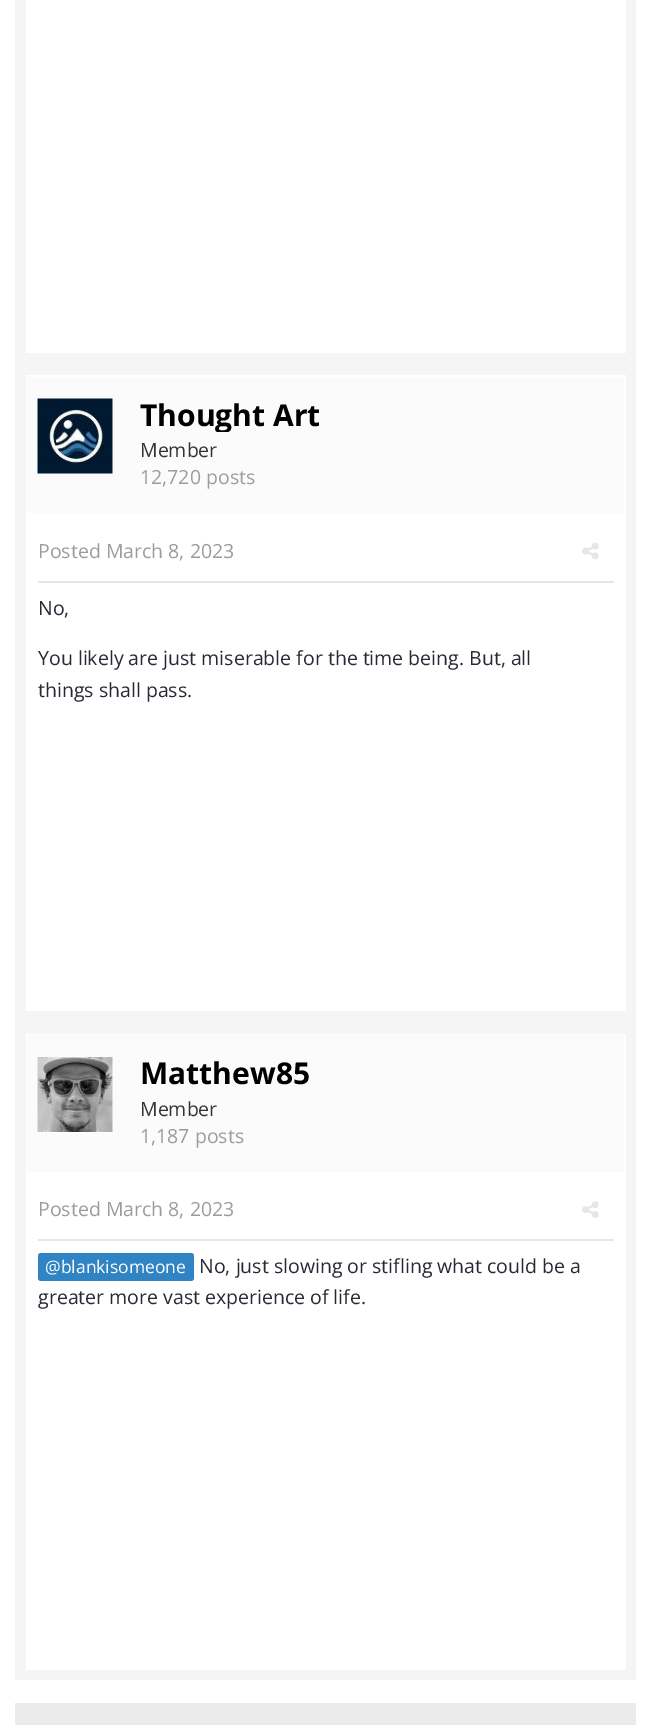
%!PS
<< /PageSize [650 1725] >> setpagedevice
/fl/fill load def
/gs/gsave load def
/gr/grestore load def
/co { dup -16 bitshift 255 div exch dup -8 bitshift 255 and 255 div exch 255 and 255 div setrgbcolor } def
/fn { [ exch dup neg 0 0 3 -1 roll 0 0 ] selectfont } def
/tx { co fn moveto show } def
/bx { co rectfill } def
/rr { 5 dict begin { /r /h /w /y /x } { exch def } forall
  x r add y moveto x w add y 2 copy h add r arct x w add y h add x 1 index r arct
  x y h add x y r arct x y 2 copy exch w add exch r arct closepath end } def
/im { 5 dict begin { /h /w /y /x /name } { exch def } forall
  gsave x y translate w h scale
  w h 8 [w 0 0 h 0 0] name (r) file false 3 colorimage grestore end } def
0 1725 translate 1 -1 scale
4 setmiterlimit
0 0 650 1725 16#FFFFFF bx
15 0 621 1680 16#F5F5F5 bx
26 0 600 353 16#FFFFFF bx
26 375 600 636 16#FFFFFF bx
27 377 597 136 16#FBFBFB bx
16#FFFFFF co
38 399 75 75 3 rr fl
(media/1.raw) 37 398 76 76 im
38 581 576 2 16#E6E6E6 bx
(media/2.raw) 582 542 17 18 im
26 1034 600 636 16#FFFFFF bx
27 1035 597 137 16#FBFBFB bx
16#FFFFFF co
38 1058 75 75 3 rr fl
(media/3.raw) 37 1057 76 75 im
38 1239 576 2 16#E6E6E6 bx
(media/4.raw) 582 1201 17 17 im
16#3084C4 co
38 1253 156 28 3 rr fl
15 1703 621 22 16#EBEBEB bx
gs
140 399 469 33 rectclip
(Thought Art) 140 426 /OpenSans-Bold 30 16#000000 tx
gr
(Member) 140 457 /OpenSans-Regular 19.5 16#333333 tx
(12,720 posts) 140 484 /OpenSans-Regular 19.5 16#9C9C9C tx
(Posted March 8, 2023) 38 558 /OpenSans-Regular 19.5 16#9C9C9C tx
(No,) 38 615 /OpenSans-Regular 19.5 16#272A34 tx
(You likely are just miserable for the time being. But, all) 38 665 /OpenSans-Regular 19.5 16#272A34 tx
(things shall pass.) 38 697 /OpenSans-Regular 19.5 16#272A34 tx
(Matthew85) 140 1084 /OpenSans-Bold 30 16#000000 tx
(Member) 140 1116 /OpenSans-Regular 19.5 16#333333 tx
(1,187 posts) 140 1143 /OpenSans-Regular 19.5 16#9C9C9C tx
(Posted March 8, 2023) 38 1216 /OpenSans-Regular 19.5 16#9C9C9C tx
(@blankisomeone) 45 1273 /OpenSans-Regular 17.5 16#FFFFFF tx
(No, just slowing or stifling what could be a) 199 1273 /OpenSans-Regular 19.5 16#272A34 tx
(greater more vast experience of life.) 38 1304 /OpenSans-Regular 19.5 16#272A34 tx
showpage
